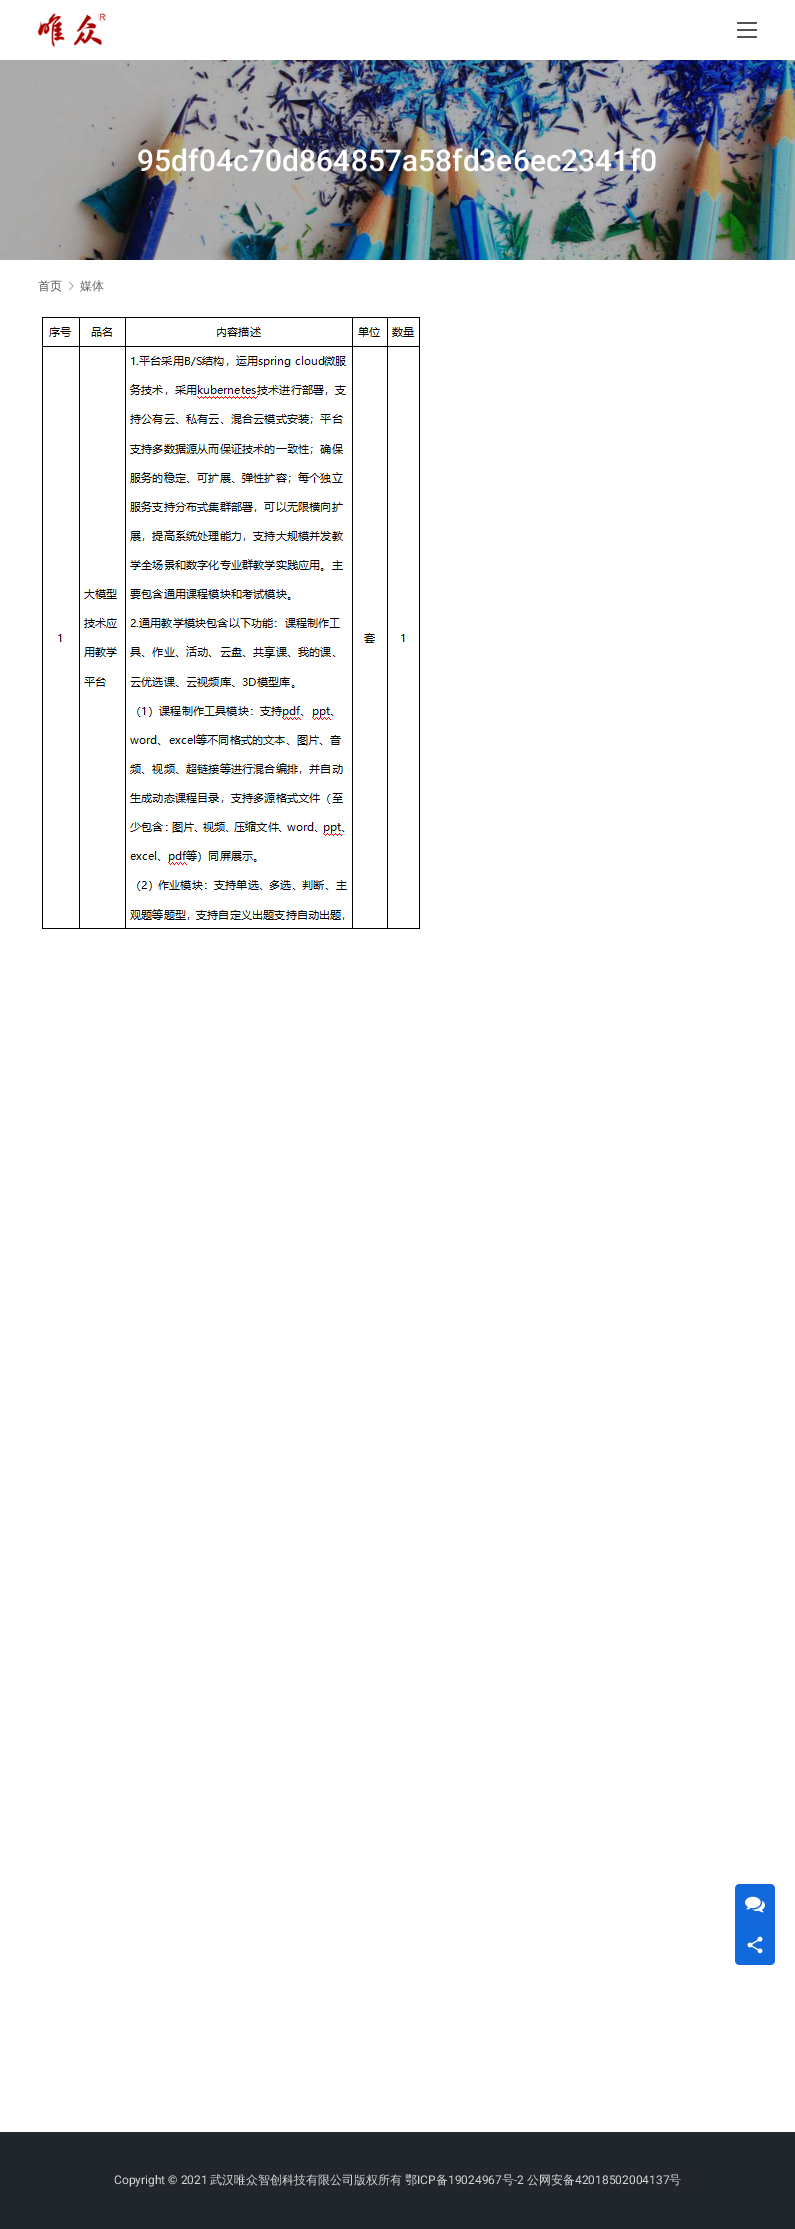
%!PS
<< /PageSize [795 2229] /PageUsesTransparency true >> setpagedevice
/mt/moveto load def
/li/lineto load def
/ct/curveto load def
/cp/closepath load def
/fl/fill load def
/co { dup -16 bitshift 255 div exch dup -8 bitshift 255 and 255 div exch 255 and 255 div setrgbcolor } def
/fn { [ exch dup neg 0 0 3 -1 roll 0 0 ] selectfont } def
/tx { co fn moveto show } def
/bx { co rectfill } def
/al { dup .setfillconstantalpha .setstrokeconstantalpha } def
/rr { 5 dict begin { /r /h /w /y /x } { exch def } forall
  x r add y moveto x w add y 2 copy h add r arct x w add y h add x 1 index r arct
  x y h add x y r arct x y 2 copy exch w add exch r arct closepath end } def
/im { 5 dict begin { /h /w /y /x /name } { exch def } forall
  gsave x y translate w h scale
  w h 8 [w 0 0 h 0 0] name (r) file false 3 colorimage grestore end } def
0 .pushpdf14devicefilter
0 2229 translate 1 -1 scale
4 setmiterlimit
0 0 795 2229 16#FFFFFF bx
(media/1.raw) 37 13 69 34 im
16#515151 co
737 22 20 2 1 rr fl
737 29 20 2 1 rr fl
737 36 20 2 1 rr fl
(media/2.raw) 0 60 795 200 im
(media/3.raw) 69 281 5 10 im
(media/4.raw) 42 317 378 612 im
16#106EEA co
740 1884 mt 770 1884 li 773 1884 775 1886 775 1889 ct 775 1924 li 735 1924 li 735 1889 li 735 1886 737 1884 740 1884 ct cp fl
0.07 al
16#262626 co
740 1884 mt 770 1884 li 773 1884 775 1886 775 1889 ct 775 1924 li 735 1924 li 735 1889 li 735 1886 737 1884 740 1884 ct cp fl
1 al
(media/5.raw) 745 1896 20 17 im
16#106EEA co
735 1924 mt 775 1924 li 775 1960 li 775 1963 773 1965 770 1965 ct 740 1965 li 737 1965 735 1963 735 1960 ct cp fl
735 1924 40 1 16#1267D6 bx
0.07 al
16#262626 co
735 1925 mt 775 1925 li 775 1960 li 775 1963 773 1965 770 1965 ct 740 1965 li 737 1965 735 1963 735 1960 ct cp fl
1 al
(media/6.raw) 747 1936 16 18 im
0 2132 795 97 16#21262C bx
(95df04c70d864857a58fd3e6ec2341f0) 137 171 /Roboto-Medium 30 16#FFFFFF tx
(首页) 38 290 /WenQuanYiZenHei-Medium 12 16#515151 tx
(媒体) 80 290 /WenQuanYiZenHei-Medium 12 16#636363 tx
(Copyright © 2021) 114 2184 /Roboto-Regular 12 16#D3D4D5 tx
(武汉唯众智创科技有限公司版权所有) 210 2184 /WenQuanYiZenHei-Medium 12 16#D3D4D5 tx
(鄂) 405 2184 /WenQuanYiZenHei-Medium 12 16#D3D4D5 tx
(ICP) 417 2184 /Roboto-Regular 12 16#D3D4D5 tx
(备) 436 2184 /WenQuanYiZenHei-Medium 12 16#D3D4D5 tx
(19024967) 448 2184 /Roboto-Regular 12 16#D3D4D5 tx
(号) 502 2184 /WenQuanYiZenHei-Medium 12 16#D3D4D5 tx
(-2) 514 2184 /Roboto-Regular 12 16#D3D4D5 tx
(公网安备) 527 2184 /WenQuanYiZenHei-Medium 12 16#D3D4D5 tx
(42018502004137) 575 2184 /Roboto-Regular 12 16#D3D4D5 tx
(号) 669 2184 /WenQuanYiZenHei-Medium 12 16#D3D4D5 tx
.poppdf14devicefilter showpage
